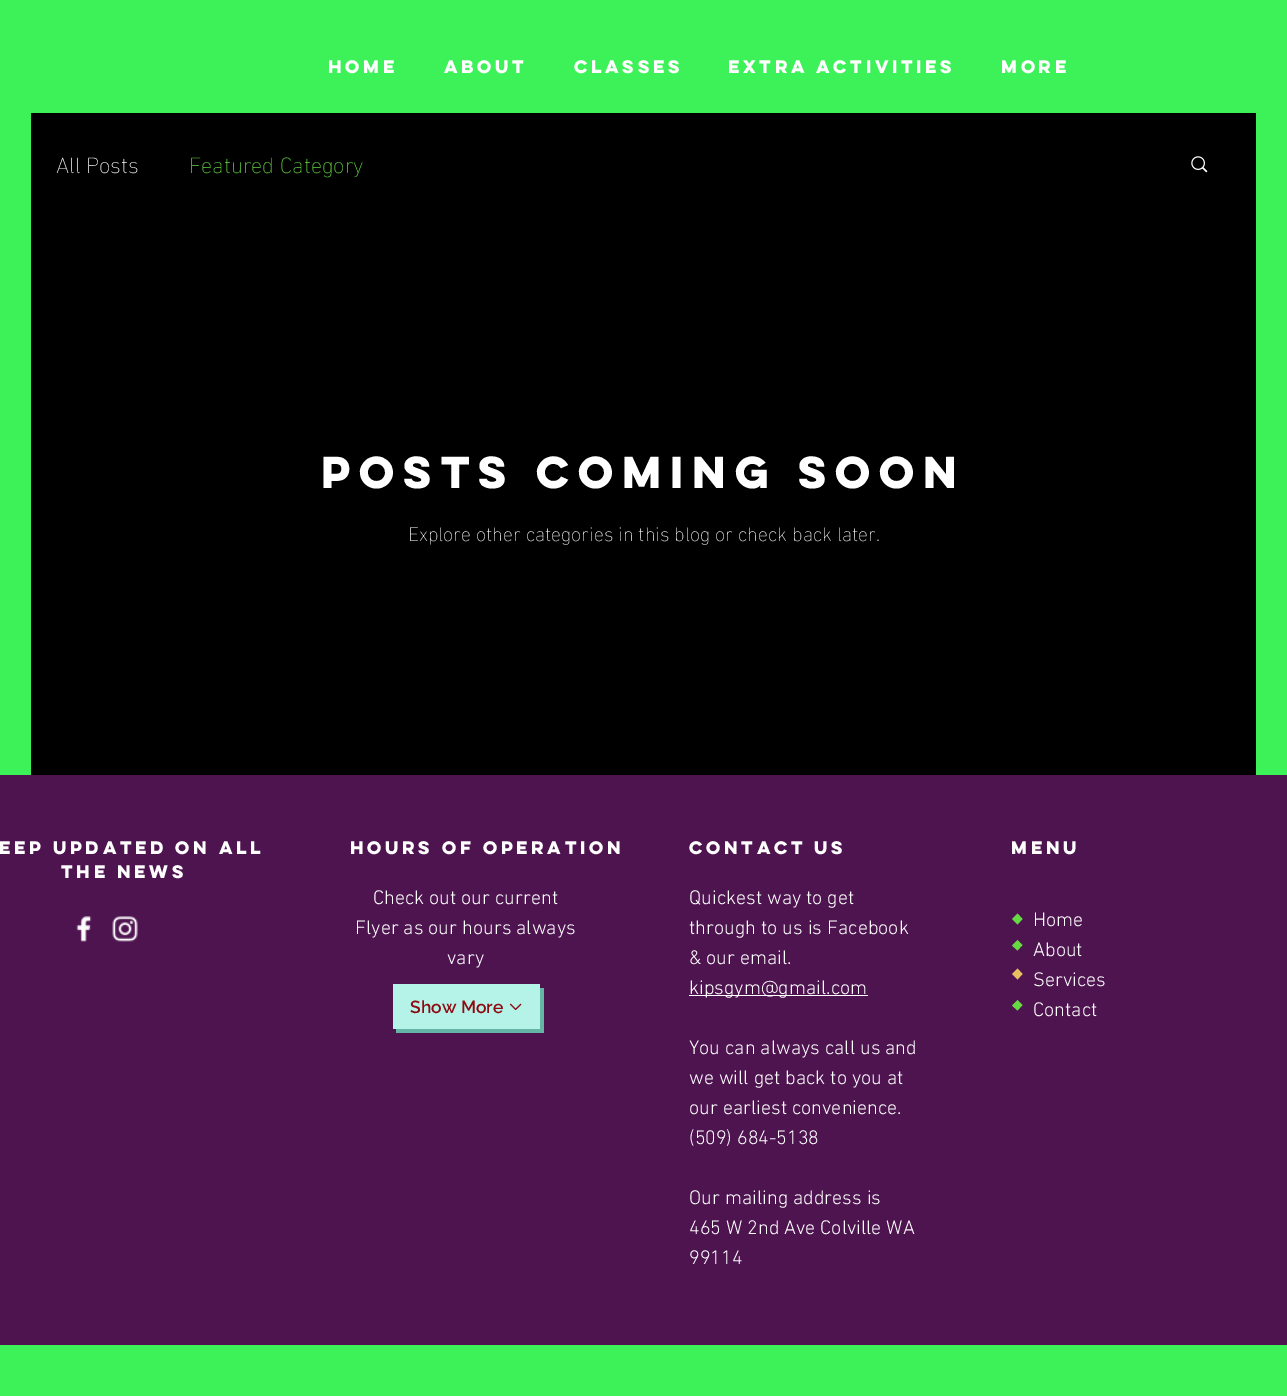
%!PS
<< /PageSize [1287 1396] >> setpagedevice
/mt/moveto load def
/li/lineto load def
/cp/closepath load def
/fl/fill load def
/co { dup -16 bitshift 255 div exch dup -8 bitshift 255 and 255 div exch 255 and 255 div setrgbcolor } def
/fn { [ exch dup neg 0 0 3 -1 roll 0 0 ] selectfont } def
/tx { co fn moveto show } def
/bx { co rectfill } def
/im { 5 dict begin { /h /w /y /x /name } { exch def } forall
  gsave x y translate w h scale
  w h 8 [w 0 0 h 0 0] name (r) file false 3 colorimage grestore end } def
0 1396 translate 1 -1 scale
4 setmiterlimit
0 0 1287 1396 16#3DF258 bx
31 113 1225 662 16#000000 bx
(media/1.raw) 1191 156 17 17 im
0 775 1287 570 16#4E1450 bx
(media/2.raw) 76 916 16 26 im
(media/3.raw) 112 916 26 26 im
16#65B5A6 co
396 1029 mt 396 1033 li 544 1033 li 544 988 li 540 988 li 540 1029 li cp fl
393 984 147 45 16#B5F3E8 bx
(media/4.raw) 509 1003 13 7 im
689 995 179 1 16#FFFFFF bx
16#66DA43 co
1022.5 919 mt 1017.5 924.5 li 1012 919 li 1017.5 913.5 li cp 1022.5 945 mt 1017.5 950.5 li 1012 945.5 li 1017.5 940 li cp fl
16#E8C061 co
1022.5 974 mt 1017.5 979.5 li 1012 974 li 1017.5 968.5 li cp fl
16#66DA43 co
1022.5 1005 mt 1017.5 1010.5 li 1012 1005.5 li 1017.5 1000 li cp fl
(HOME) 328 73 /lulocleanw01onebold-Bold 16.25 16#FFFFFF tx
(ABOUT) 444 73 /lulocleanw01onebold-Bold 16.25 16#FFFFFF tx
(CLASSES) 574 73 /lulocleanw01onebold-Bold 16.25 16#FFFFFF tx
(EXTRA ACTIVITIES) 728 73 /lulocleanw01onebold-Bold 16.25 16#FFFFFF tx
(More) 1001 73 /lulocleanw01onebold-Bold 16.25 16#FFFFFF tx
(All Posts) 56 173 /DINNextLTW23-ExtraLight 22.5 16#FFFFFF tx
(Featured Category) 189 173 /DINNextLTW23-ExtraLight 22.5 16#66DA43 tx
(Posts Coming Soon) 321 488 /lulocleanw01onebold-Bold 40 16#FFFFFF tx
(Explore other categories in this blog or check back later.) 408 541 /DINNextLTW23-ExtraLight 20 16#FFFFFF tx
(EEP UPDATED ON ALL) -1 854 /lulocleanw01onebold-Bold 16.25 16#FFFFFF tx
(THE NEWS) 61 878 /lulocleanw01onebold-Bold 16.25 16#FFFFFF tx
(Hours of operation) 350 854 /lulocleanw01onebold-Bold 16.25 16#FFFFFF tx
(Check out our current) 373 904 /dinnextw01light-Light 20 16#FFFFFF tx
(Flyer as our hours always) 355 934 /dinnextw01light-Light 20 16#FFFFFF tx
(vary) 447 964 /dinnextw01light-Light 20 16#FFFFFF tx
(Show More) 410 1013 /Raleway-SemiBold 17.5 16#8E0A12 tx
(contact us) 689 854 /lulocleanw01onebold-Bold 16.25 16#FFFFFF tx
(Quickest way to get) 689 904 /dinnextw01light-Light 20 16#FFFFFF tx
(through to us is Facebook) 689 934 /dinnextw01light-Light 20 16#FFFFFF tx
(& our email.) 689 964 /dinnextw01light-Light 20 16#FFFFFF tx
(kipsgym@gmail.com) 689 994 /dinnextw01light-Light 20 16#FFFFFF tx
(You can always call us and) 689 1054 /dinnextw01light-Light 20 16#FFFFFF tx
(we will get back to you at) 689 1084 /dinnextw01light-Light 20 16#FFFFFF tx
(our earliest convenience.) 689 1114 /dinnextw01light-Light 20 16#FFFFFF tx
(\(509\) 684-5138) 689 1144 /dinnextw01light-Light 20 16#FFFFFF tx
(Our mailing address is) 689 1204 /dinnextw01light-Light 20 16#FFFFFF tx
(465 W 2nd Ave Colville WA) 689 1234 /dinnextw01light-Light 20 16#FFFFFF tx
(99114) 689 1264 /dinnextw01light-Light 20 16#FFFFFF tx
(Menu) 1011 854 /lulocleanw01onebold-Bold 16.25 16#FFFFFF tx
(Home) 1033 926 /dinnextw01light-Light 20 16#FFFFFF tx
(About) 1033 956 /dinnextw01light-Light 20 16#FFFFFF tx
(Services) 1033 986 /dinnextw01light-Light 20 16#FFFFFF tx
(Contact) 1033 1016 /dinnextw01light-Light 20 16#FFFFFF tx
showpage
